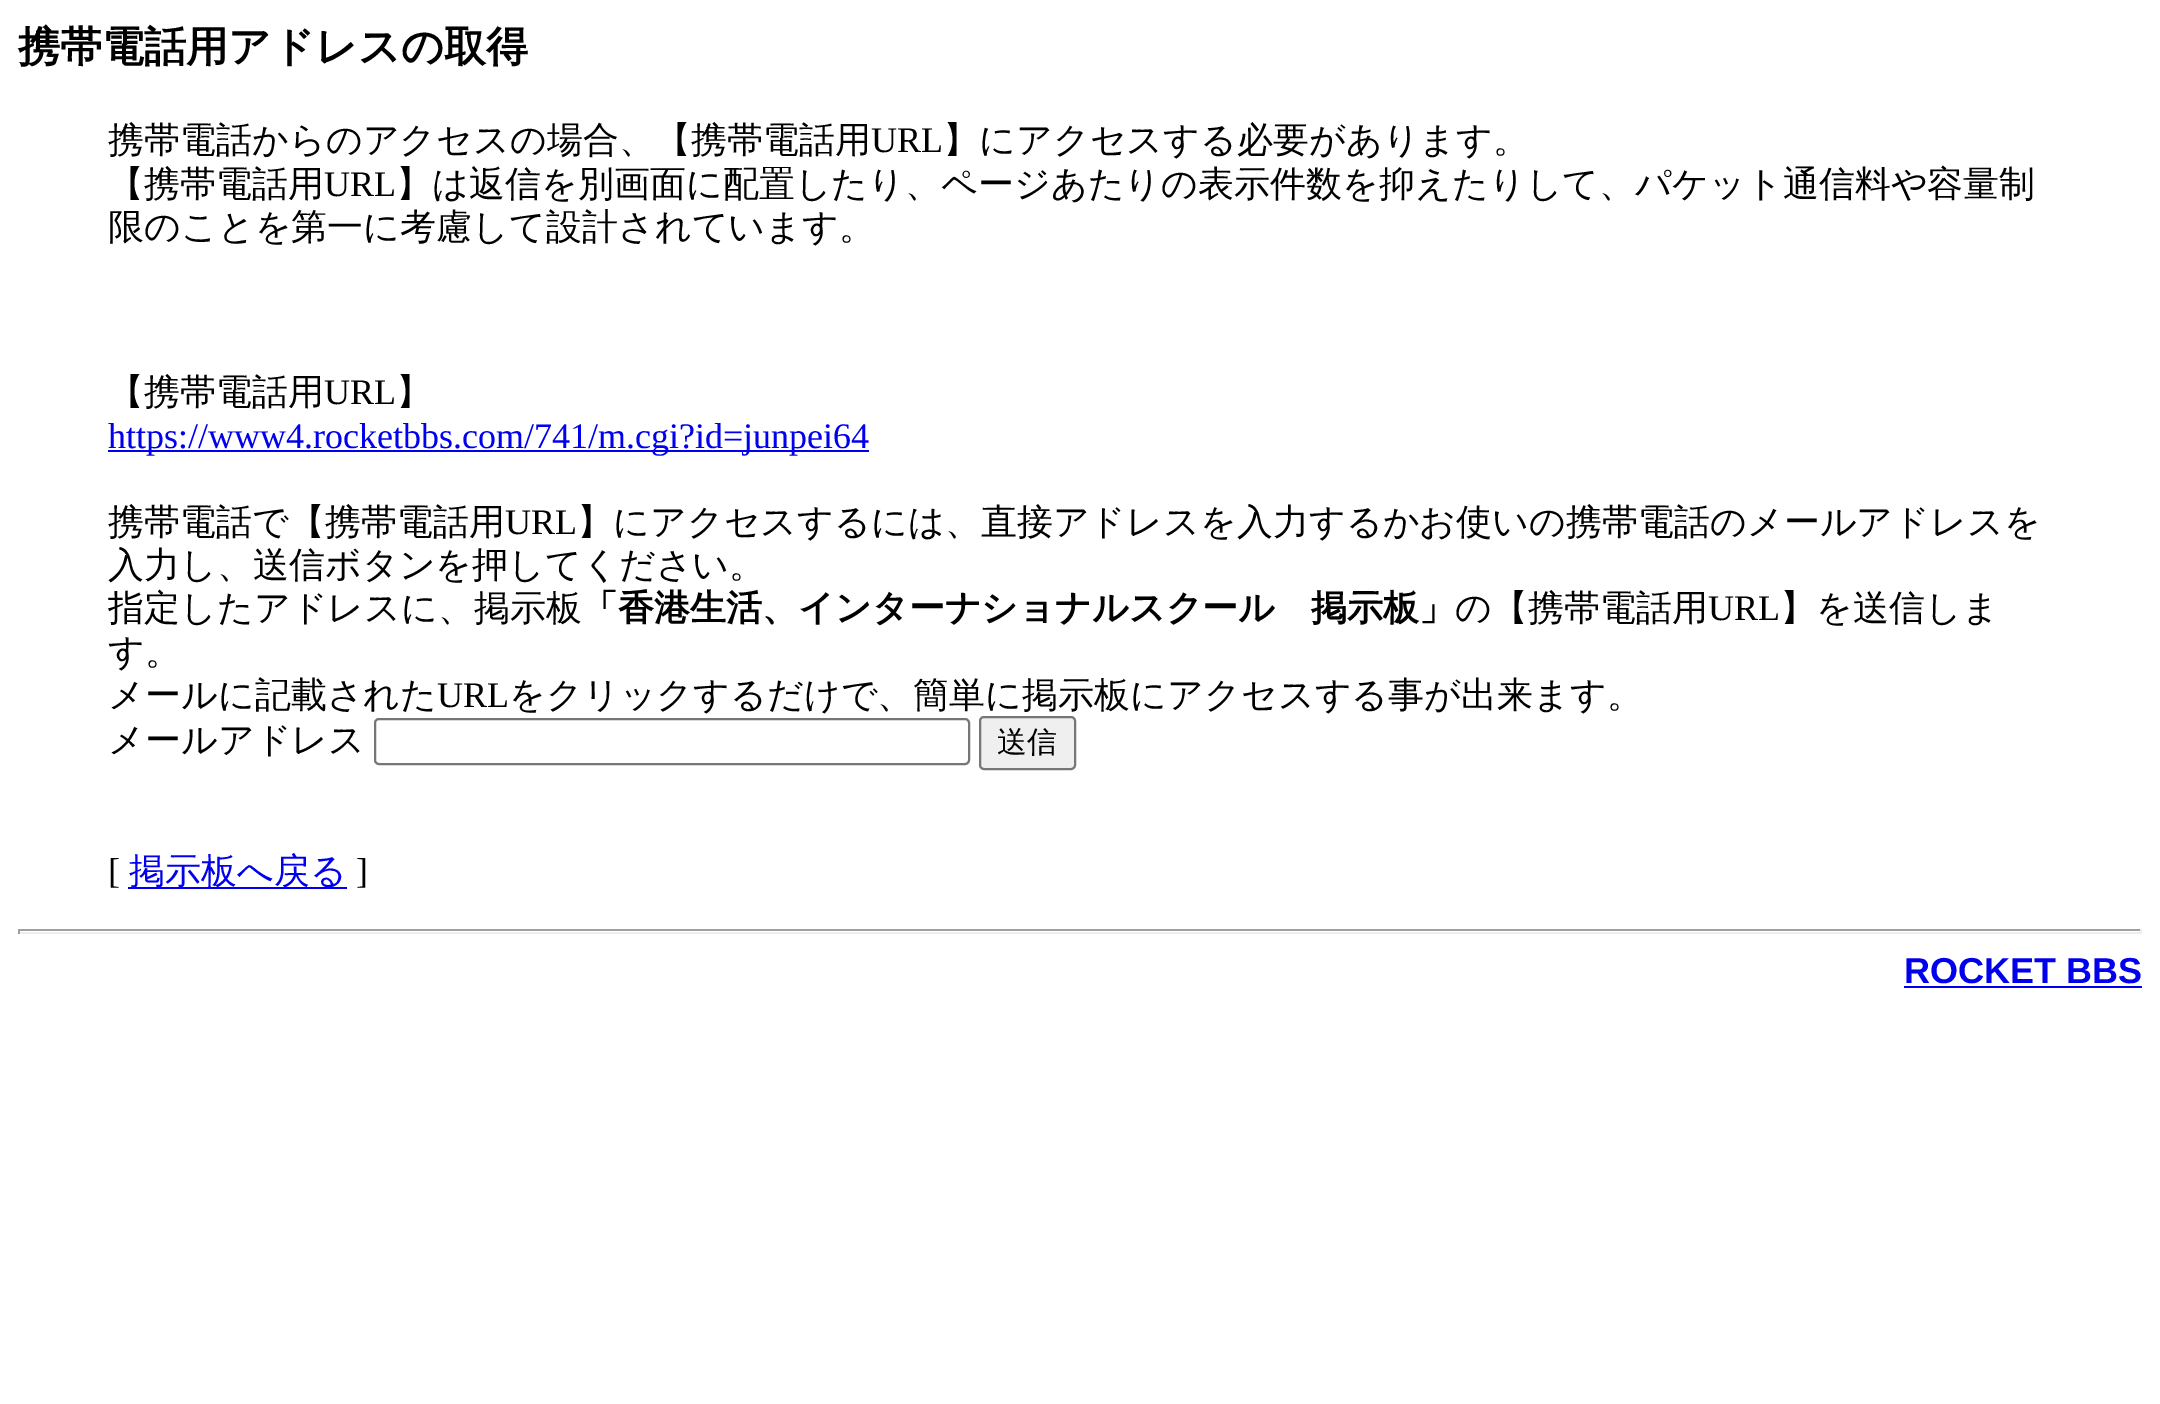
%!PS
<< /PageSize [2160 1404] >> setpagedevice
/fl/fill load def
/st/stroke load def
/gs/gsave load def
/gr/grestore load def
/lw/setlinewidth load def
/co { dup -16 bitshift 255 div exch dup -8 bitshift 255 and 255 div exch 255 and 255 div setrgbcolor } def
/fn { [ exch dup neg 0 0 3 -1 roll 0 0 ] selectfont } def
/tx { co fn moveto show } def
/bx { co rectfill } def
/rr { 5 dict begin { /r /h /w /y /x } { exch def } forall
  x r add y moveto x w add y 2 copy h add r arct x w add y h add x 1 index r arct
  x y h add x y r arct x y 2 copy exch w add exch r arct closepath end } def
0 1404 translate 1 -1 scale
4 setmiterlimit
0 0 2160 1404 16#FFFFFF bx
108 450 761 2 16#0000EE bx
16#767676 co
2 lw
375 719 594 45 4 rr st
16#EFEFEF co
980 717 95 52 4 rr gs fl gr
16#767676 co
st
128 887 219 2 16#0000EE bx
18 929 2124 2 16#9F9F9F bx
2140 929 2 5 16#EEEEEE bx
18 932 2124 2 16#EEEEEE bx
18 929 2 5 16#9F9F9F bx
1904 986 238 2 16#0000EE bx
(携帯電話用アドレスの取得) 18 61 /WenQuanYiZenHei-Bold 42.1 16#000000 tx
(携帯電話からのアクセスの場合、【携帯電話用) 108 152 /WenQuanYiZenHei-Medium 36 16#000000 tx
(URL) 871 152 /LiberationSerif-Regular 36 16#000000 tx
(】にアクセスする必要があります。) 943 152 /WenQuanYiZenHei-Medium 36 16#000000 tx
(【携帯電話用) 108 196 /WenQuanYiZenHei-Medium 36 16#000000 tx
(URL) 324 196 /LiberationSerif-Regular 36 16#000000 tx
(】は返信を別画面に配置したり、ページあたりの表示件数を抑えたりして、パケット通信料や容量制) 396 196 /WenQuanYiZenHei-Medium 36 16#000000 tx
(限のことを第一に考慮して設計されています。) 108 239 /WenQuanYiZenHei-Medium 36 16#000000 tx
(【携帯電話用) 108 404 /WenQuanYiZenHei-Medium 36 16#000000 tx
(URL) 324 404 /LiberationSerif-Regular 36 16#000000 tx
(】) 396 404 /WenQuanYiZenHei-Medium 36 16#000000 tx
(https://www4.rocketbbs.com/741/m.cgi?id=junpei64) 108 448 /LiberationSerif-Regular 36 16#0000EE tx
(携帯電話で【携帯電話用) 108 534 /WenQuanYiZenHei-Medium 36 16#000000 tx
(URL) 505 534 /LiberationSerif-Regular 36 16#000000 tx
(】にアクセスするには、直接アドレスを入力するかお使いの携帯電話のメールアドレスを) 577 534 /WenQuanYiZenHei-Medium 36 16#000000 tx
(入力し、送信ボタンを押してください。) 108 577 /WenQuanYiZenHei-Medium 36 16#000000 tx
(指定したアドレスに、掲示板) 108 620 /WenQuanYiZenHei-Medium 36 16#000000 tx
(「香港生活、インターナショナルスクール　掲示板」) 582 620 /WenQuanYiZenHei-Bold 36 16#000000 tx
(の【携帯電話用) 1455 620 /WenQuanYiZenHei-Medium 36 16#000000 tx
(URL) 1708 620 /LiberationSerif-Regular 36 16#000000 tx
(】を送信しま) 1780 620 /WenQuanYiZenHei-Medium 36 16#000000 tx
(す。) 108 664 /WenQuanYiZenHei-Medium 36 16#000000 tx
(メールに記載された) 108 707 /WenQuanYiZenHei-Medium 36 16#000000 tx
(URL) 437 707 /LiberationSerif-Regular 36 16#000000 tx
(をクリックするだけで、簡単に掲示板にアクセスする事が出来ます。) 509 707 /WenQuanYiZenHei-Medium 36 16#000000 tx
(メールアドレス) 108 752 /WenQuanYiZenHei-Medium 36 16#000000 tx
(送信) 997 752 /WenQuanYiZenHei-Medium 30 16#000000 tx
([) 108 883 /LiberationSerif-Regular 36 16#000000 tx
(掲示板へ戻る) 129 883 /WenQuanYiZenHei-Medium 36 16#0000EE tx
(]) 356 883 /LiberationSerif-Regular 36 16#000000 tx
(ROCKET BBS) 1904 983 /LiberationSans-Bold 36 16#0000EE tx
showpage
